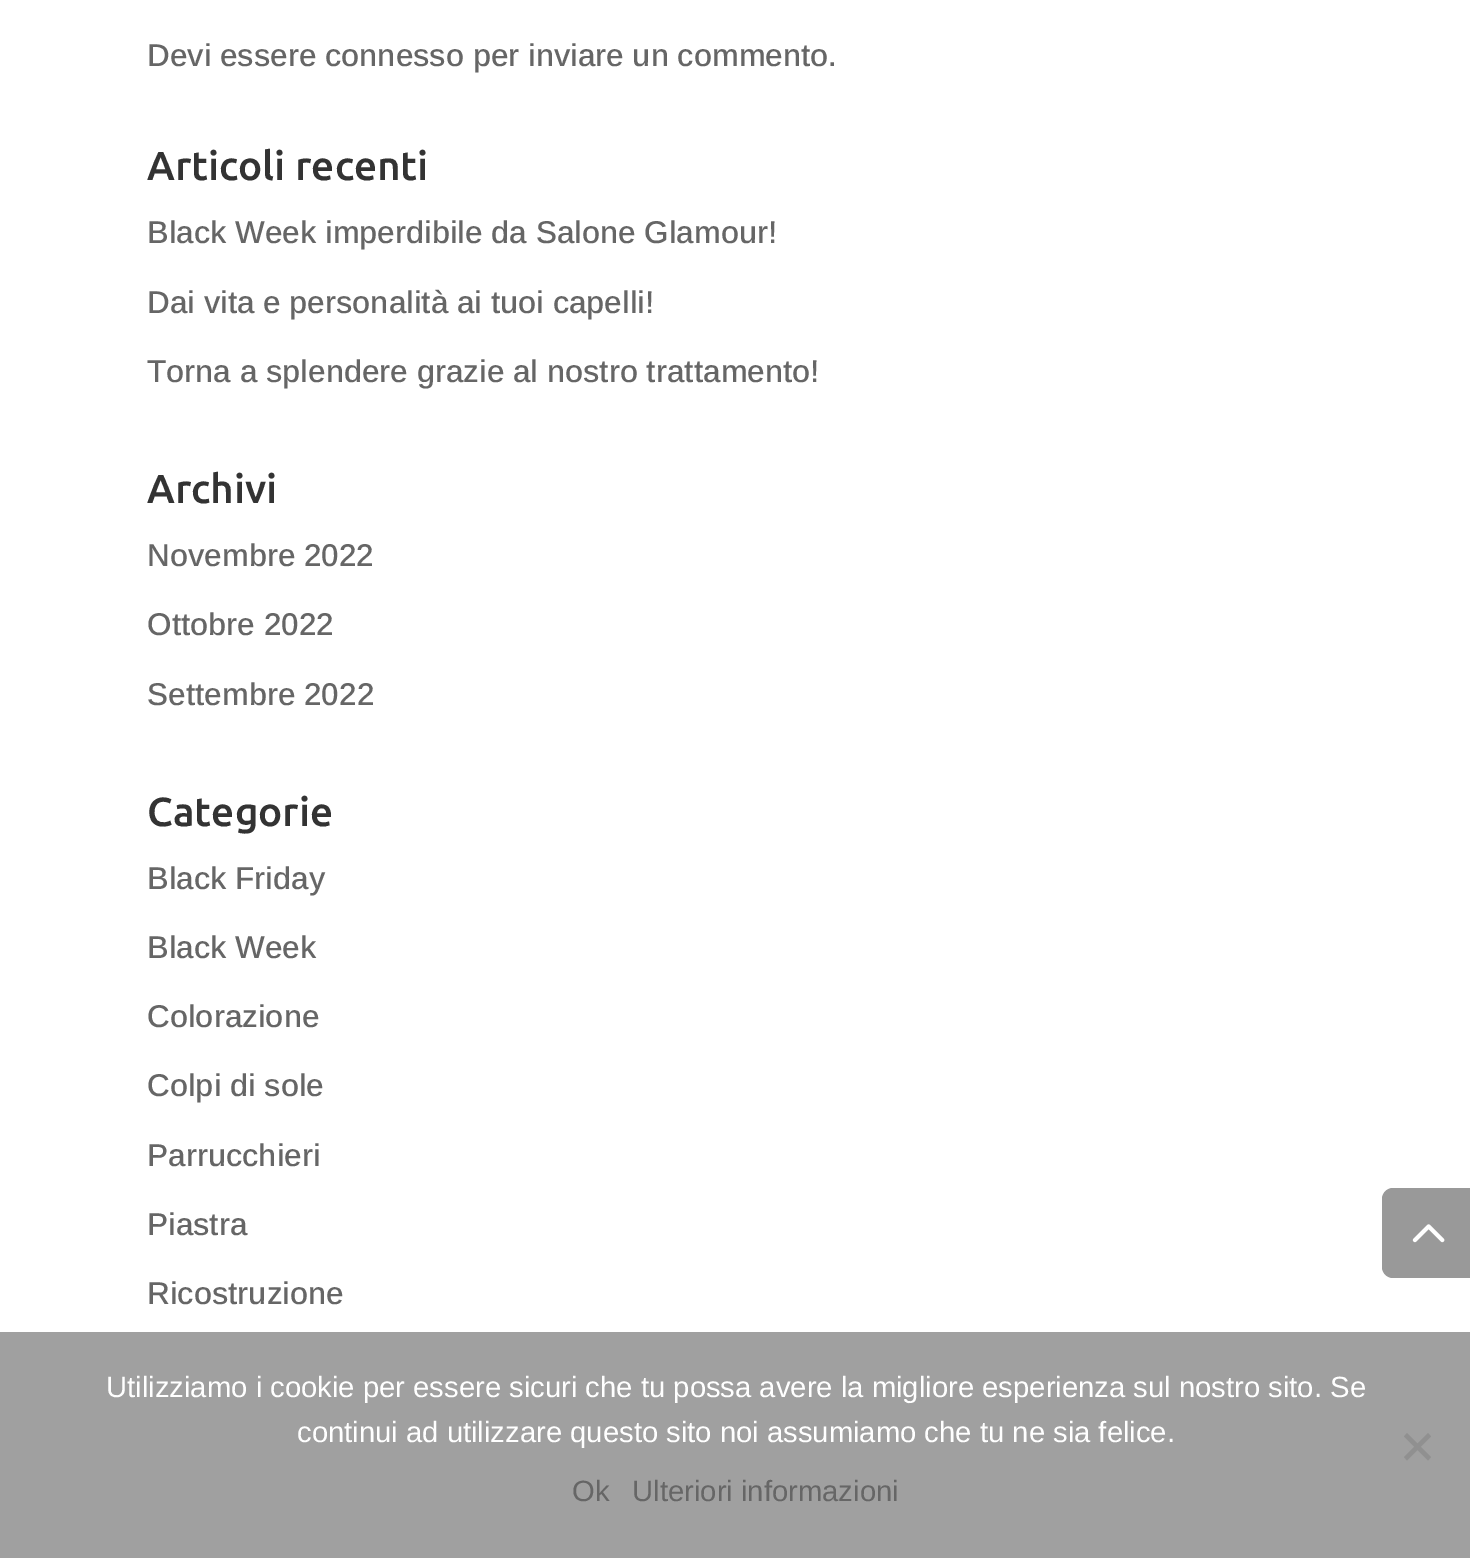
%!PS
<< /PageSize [1470 1558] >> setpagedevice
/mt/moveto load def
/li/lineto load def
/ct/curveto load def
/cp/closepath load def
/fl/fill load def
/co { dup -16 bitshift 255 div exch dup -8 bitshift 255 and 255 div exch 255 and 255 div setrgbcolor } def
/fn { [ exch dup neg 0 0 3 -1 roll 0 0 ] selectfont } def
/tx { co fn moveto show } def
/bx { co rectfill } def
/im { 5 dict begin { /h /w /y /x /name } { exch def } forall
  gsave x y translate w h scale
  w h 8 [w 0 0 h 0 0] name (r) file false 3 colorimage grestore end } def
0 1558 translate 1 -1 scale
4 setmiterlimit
0 0 1470 1558 16#FFFFFF bx
16#999999 co
1393 1188 mt 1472 1188 li 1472 1278 li 1393 1278 li 1387 1278 1382 1273 1382 1267 ct 1382 1199 li 1382 1193 1387 1188 1393 1188 ct cp fl
(media/1.raw) 1412 1224 33 19 im
0 1332 1470 226 16#A0A0A0 bx
16#909090 co
1428 1433 mt 1431 1436.5 li 1407 1460.5 li 1404 1457 li cp fl
1404 1436.5 mt 1407 1433 li 1431 1457 li 1428 1460.5 li cp fl
(Devi essere connesso per inviare un commento.) 147 66 /Arimo-Medium 31.5 16#666666 tx
(Articoli recenti) 147 180 /Ubuntu-Medium 40.5 16#333333 tx
(Black Week imperdibile da Salone Glamour!) 147 243 /Arimo-Medium 31.5 16#666666 tx
(Dai vita e personalità ai tuoi capelli!) 147 313 /Arimo-Medium 31.5 16#666666 tx
(Torna a splendere grazie al nostro trattamento!) 147 382 /Arimo-Medium 31.5 16#666666 tx
(Archivi) 147 503 /Ubuntu-Medium 40.5 16#333333 tx
(Novembre 2022) 147 566 /Arimo-Medium 31.5 16#666666 tx
(Ottobre 2022) 147 635 /Arimo-Medium 31.5 16#666666 tx
(Settembre 2022) 147 705 /Arimo-Medium 31.5 16#666666 tx
(Categorie) 147 826 /Ubuntu-Medium 40.5 16#333333 tx
(Black Friday) 147 889 /Arimo-Medium 31.5 16#666666 tx
(Black Week) 147 958 /Arimo-Medium 31.5 16#666666 tx
(Colorazione) 147 1027 /Arimo-Medium 31.5 16#666666 tx
(Colpi di sole) 147 1096 /Arimo-Medium 31.5 16#666666 tx
(Parrucchieri) 147 1166 /Arimo-Medium 31.5 16#666666 tx
(Piastra) 147 1235 /Arimo-Medium 31.5 16#666666 tx
(Ricostruzione) 147 1304 /Arimo-Medium 31.5 16#666666 tx
(Utilizziamo i cookie per essere sicuri che tu possa avere la migliore esperienza sul nostro sito. Se) 106 1397 /LiberationSans-Regular 29.25 16#FFFFFF tx
(continui ad utilizzare questo sito noi assumiamo che tu ne sia felice.) 297 1442 /LiberationSans-Regular 29.25 16#FFFFFF tx
(Ok) 572 1501 /LiberationSans-Regular 29.25 16#666666 tx
(Ulteriori informazioni) 632 1501 /LiberationSans-Regular 29.25 16#666666 tx
showpage
